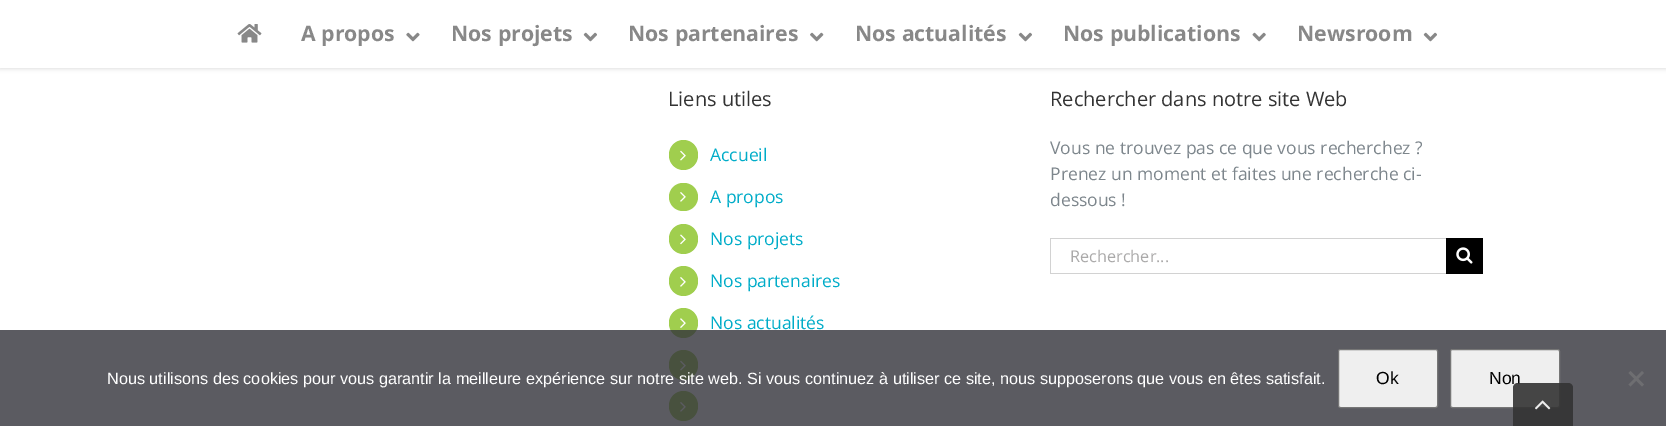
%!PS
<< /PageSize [1666 426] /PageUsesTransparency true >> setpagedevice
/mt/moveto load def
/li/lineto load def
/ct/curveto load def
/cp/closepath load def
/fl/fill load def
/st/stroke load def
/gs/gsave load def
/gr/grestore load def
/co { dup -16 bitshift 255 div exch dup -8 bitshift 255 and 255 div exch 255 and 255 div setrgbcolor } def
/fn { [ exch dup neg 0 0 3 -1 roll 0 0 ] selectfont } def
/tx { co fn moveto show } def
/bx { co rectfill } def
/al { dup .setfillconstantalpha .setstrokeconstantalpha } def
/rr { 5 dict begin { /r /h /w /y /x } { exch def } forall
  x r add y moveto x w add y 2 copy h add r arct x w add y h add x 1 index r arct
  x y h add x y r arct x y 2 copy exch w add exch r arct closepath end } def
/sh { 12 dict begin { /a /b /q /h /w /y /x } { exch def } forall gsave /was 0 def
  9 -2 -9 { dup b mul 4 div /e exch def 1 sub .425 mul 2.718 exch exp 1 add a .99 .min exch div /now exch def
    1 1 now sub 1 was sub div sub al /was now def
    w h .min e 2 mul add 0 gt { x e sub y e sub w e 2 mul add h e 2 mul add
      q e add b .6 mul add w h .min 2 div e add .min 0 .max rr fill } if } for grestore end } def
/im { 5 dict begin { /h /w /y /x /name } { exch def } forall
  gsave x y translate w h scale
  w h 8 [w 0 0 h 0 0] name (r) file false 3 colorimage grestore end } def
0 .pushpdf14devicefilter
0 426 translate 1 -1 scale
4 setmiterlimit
0 0 1666 426 16#FFFFFF bx
16#000000 co
0 1 1666 68 0 2 .12 sh
0 0 1666 68 16#FFFFFF bx
(media/1.raw) 237 24 25 19 im
(media/2.raw) 406 32 14 10 im
(media/3.raw) 583 32 14 10 im
(media/4.raw) 810 32 14 10 im
(media/3.raw) 1018 32 14 10 im
(media/5.raw) 1252 32 14 10 im
(media/3.raw) 1423 32 14 10 im
16#A0CE4E co
669 140 29 30 14.5 rr fl
(media/6.raw) 680 150 6 11 im
669 183 29 28 14 rr fl
(media/7.raw) 680 192 6 10 im
669 224 29 30 14.5 rr fl
(media/8.raw) 680 234 6 11 im
669 266 29 30 14.5 rr fl
(media/7.raw) 680 277 6 10 im
669 308 29 30 14.5 rr fl
(media/9.raw) 680 318 6 10 im
669 350 29 30 14.5 rr fl
(media/6.raw) 680 360 6 11 im
669 391 29 30 14.5 rr fl
(media/7.raw) 680 402 6 10 im
1050 238 396 1 16#D2D2D2 bx
1050 273 396 1 16#D2D2D2 bx
1050 238 1 36 16#D2D2D2 bx
1446 238 37 36 16#000000 bx
(media/10.raw) 1456 247 17 17 im
0.8 al
0 330 1666 96 16#32323A bx
1 al
16#EFEFEF co
1338.5 349.5 99 58 2 rr gs fl gr
16#767676 co
st
16#EFEFEF co
1450.5 349.5 109 58 2 rr gs fl gr
16#767676 co
st
16#6E6E71 co
1642 371 mt 1644 373 li 1630.5 386.5 li 1628.5 384.5 li cp fl
1628.5 373 mt 1630.5 371 li 1644 384.5 li 1642 386.5 li cp fl
(A propos) 301 41 /OpenSans-Bold 21.25 16#888888 tx
(Nos projets) 451 41 /OpenSans-Bold 21.25 16#888888 tx
(Nos partenaires) 628 41 /OpenSans-Bold 21.25 16#888888 tx
(Nos actualités) 855 41 /OpenSans-Bold 21.25 16#888888 tx
(Nos publications) 1063 41 /OpenSans-Bold 21.25 16#888888 tx
(Newsroom) 1297 41 /OpenSans-Bold 21.25 16#888888 tx
(Liens utiles) 668 106 /OpenSans-Regular 20 16#333333 tx
(Accueil) 710 161 /OpenSans-Regular 17.5 16#00ACC8 tx
(A propos) 710 203 /OpenSans-Regular 17.5 16#00ACC8 tx
(Nos projets) 710 245 /OpenSans-Regular 17.5 16#00ACC8 tx
(Nos partenaires) 710 287 /OpenSans-Regular 17.5 16#00ACC8 tx
(Nos actualités) 710 329 /OpenSans-Regular 17.5 16#00ACC8 tx
(Rechercher dans notre site Web) 1050 106 /OpenSans-Regular 20 16#333333 tx
(Vous ne trouvez pas ce que vous recherchez ?) 1050 154 /OpenSans-Regular 17.5 16#7D868C tx
(Prenez un moment et faites une recherche ci-) 1050 180 /OpenSans-Regular 17.5 16#7D868C tx
(dessous !) 1050 206 /OpenSans-Regular 17.5 16#7D868C tx
(Rechercher...) 1070 262 /OpenSans-Regular 16.25 16#AAA9A9 tx
(Nous utilisons des cookies pour vous garantir la meilleure expérience sur notre site web. Si vous continuez à utiliser ce site, nous supposerons que vous en êtes satisfait.) 107 384 /LiberationSans-Regular 16.25 16#FFFFFF tx
(Ok) 1376 384 /LiberationSans-Regular 17.5 16#000000 tx
(Non) 1489 384 /LiberationSans-Regular 17.5 16#000000 tx
0.9 al
16#333333 co
1518 383 mt 1568 383 li 1571 383 1573 385 1573 388 ct 1573 426 li 1513 426 li 1513 388 li 1513 385 1515 383 1518 383 ct cp fl
1 al
(media/11.raw) 1535 400 16 10 im
.poppdf14devicefilter showpage
